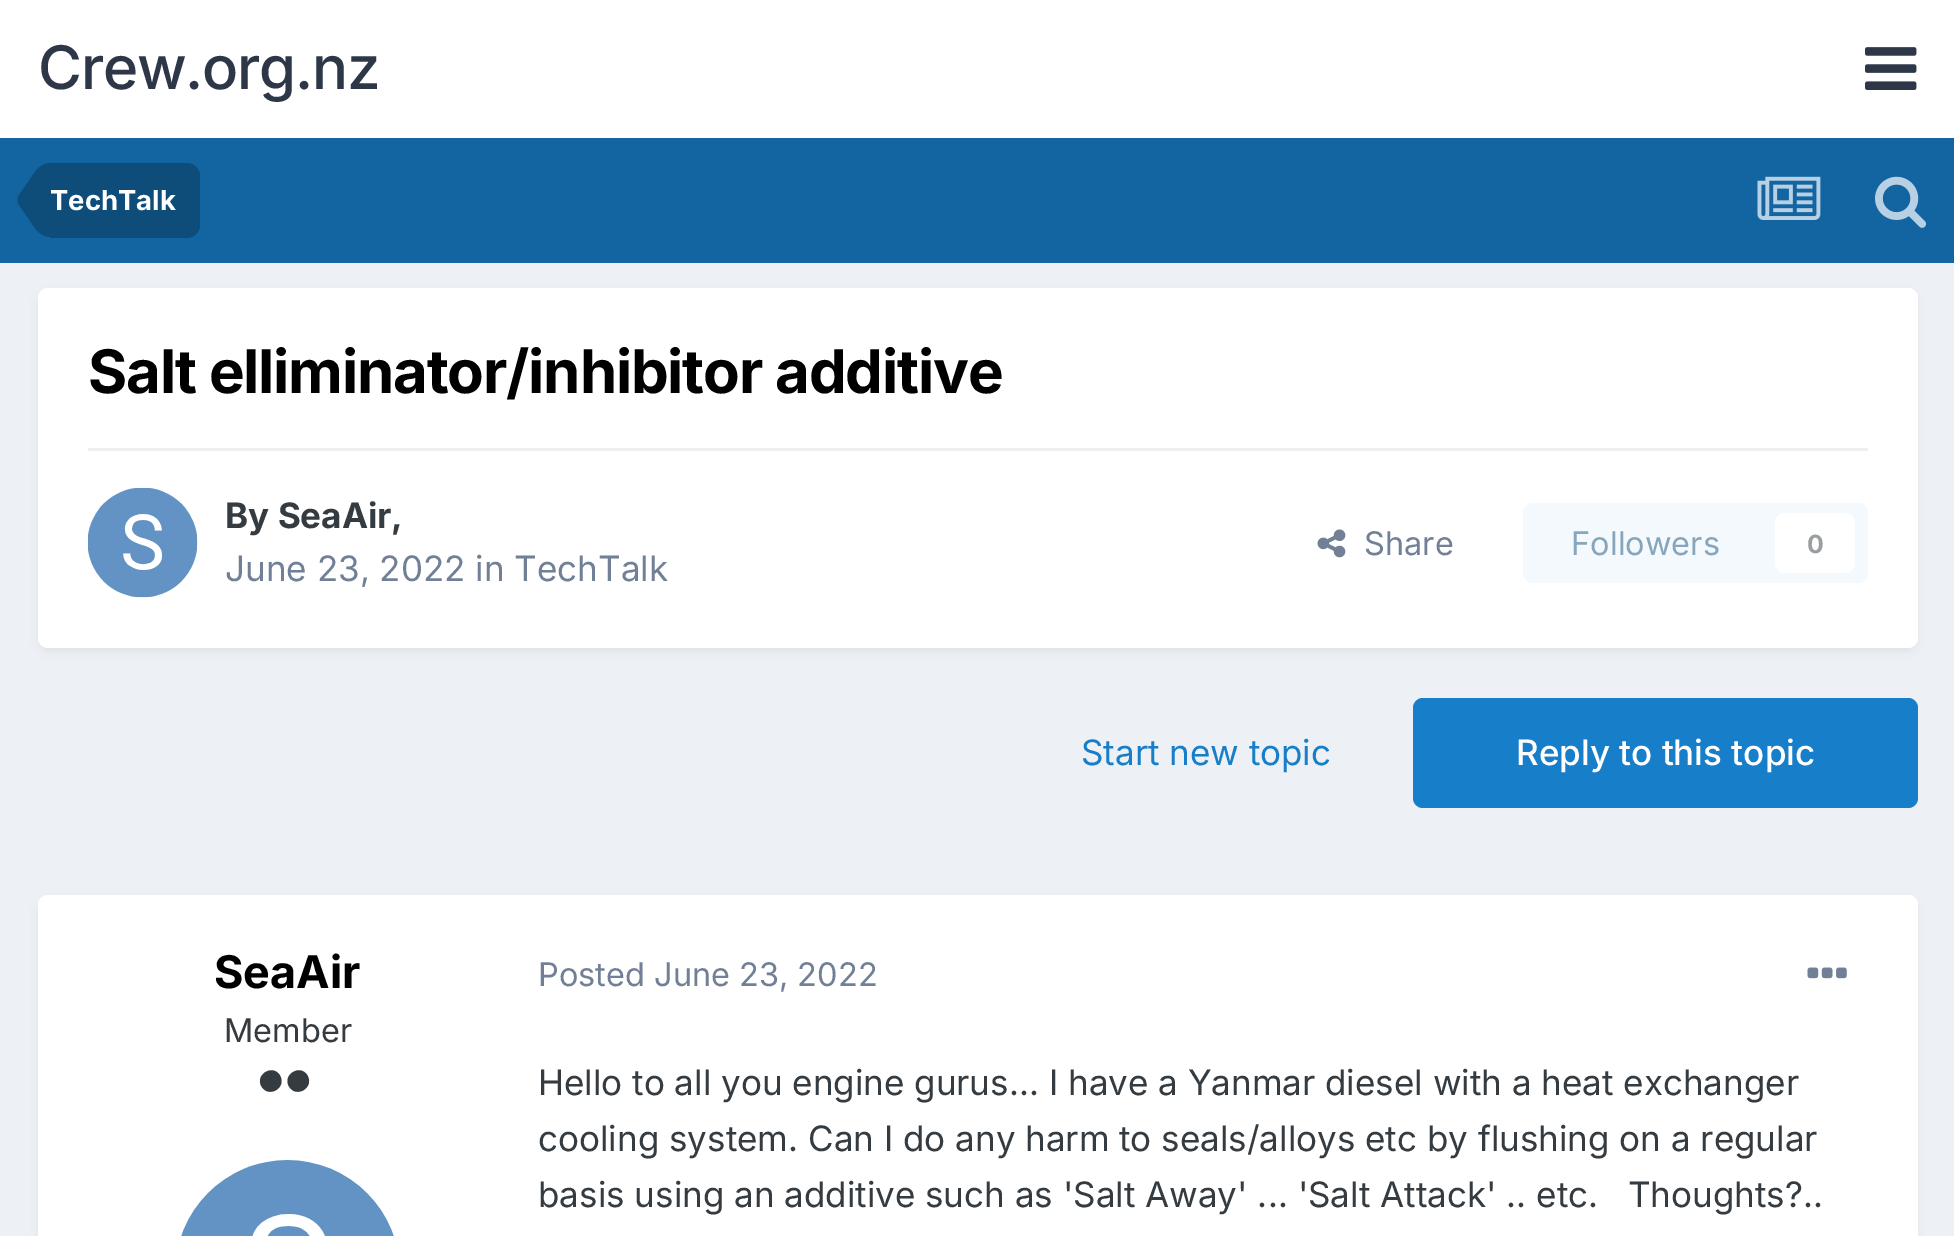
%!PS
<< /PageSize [1954 1236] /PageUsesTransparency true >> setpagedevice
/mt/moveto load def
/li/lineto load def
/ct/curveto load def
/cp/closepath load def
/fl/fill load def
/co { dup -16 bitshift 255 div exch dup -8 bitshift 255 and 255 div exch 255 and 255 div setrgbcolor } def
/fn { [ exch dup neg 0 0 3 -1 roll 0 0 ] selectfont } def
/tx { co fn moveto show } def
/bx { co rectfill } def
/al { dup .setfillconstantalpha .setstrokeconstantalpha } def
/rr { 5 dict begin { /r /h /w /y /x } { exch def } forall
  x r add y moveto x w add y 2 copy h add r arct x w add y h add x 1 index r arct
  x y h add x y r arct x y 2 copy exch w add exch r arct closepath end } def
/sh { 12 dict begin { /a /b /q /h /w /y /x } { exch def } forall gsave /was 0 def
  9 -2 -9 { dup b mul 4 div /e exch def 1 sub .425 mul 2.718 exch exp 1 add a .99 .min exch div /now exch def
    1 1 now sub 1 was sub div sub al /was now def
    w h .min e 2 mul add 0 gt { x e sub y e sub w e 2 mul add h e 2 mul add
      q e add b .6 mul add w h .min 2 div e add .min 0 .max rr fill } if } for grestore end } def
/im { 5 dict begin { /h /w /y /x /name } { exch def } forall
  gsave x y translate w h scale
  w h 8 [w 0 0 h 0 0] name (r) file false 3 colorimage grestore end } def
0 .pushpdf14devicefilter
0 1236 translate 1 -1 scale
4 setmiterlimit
0 0 1954 1236 16#EDF0F4 bx
0 0 1954 138 16#FFFFFF bx
(media/1.raw) 1865 47 52 43 im
0 138 1954 125 16#1265A1 bx
16#0E4C79 co
50 163 mt 187 163 li 194 163 200 169 200 176 ct 200 225 li 200 232 194 238 187 238 ct 50 238 li cp fl
50 200 mt 50 237 li 44.5 237 39 234 35 228 ct 19 205 li 18 203.5 17.5 202 17.5 200 ct cp fl
50 200 mt 17.5 200 li 17.5 198 18 196.5 19 195 ct 35 172 li 39 166 44.5 163 50 163 ct cp fl
(media/2.raw) 1757 176 64 44 im
(media/3.raw) 1875 176 52 52 im
16#2D3748 co
40 295 1875 355 8 5 .1 sh
16#FFFFFF co
38 288 1880 360 10 rr fl
88 448 1780 3 16#EFEFF0 bx
(media/4.raw) 88 488 110 110 im
(media/5.raw) 1317 529 29 29 im
16#F4F9FD co
1523 503 345 80 10 rr fl
16#FFFFFF co
1775 513 80 60 10 rr fl
16#177EC9 co
1413 698 505 110 10 rr fl
16#2D3748 co
40 903 1875 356 8 5 .1 sh
16#FFFFFF co
38 895 1880 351 10 rr fl
16#353C41 co
280 1075.5 mt 287 1088 268.5 1098.5 261.5 1086.5 ct 254.5 1074.5 273 1063.5 280 1075.5 ct cp 307.5 1075.5 mt 314.5 1088 296 1098.5 289 1086.5 ct 282 1074.5 300.5 1063.5 307.5 1075.5 ct cp fl
(media/6.raw) 181 1160 213 76 im
(media/7.raw) 1807 967 40 12 im
/Inter-Medium 60 fn
16#2D3748 co
38 89 mt -1.25 0 (Crew.org.nz) ashow
(TechTalk) 50 210 /Inter-Bold 27.5 16#FFFFFF tx
/Inter-Bold 60 fn
16#000000 co
88 393 mt -1.2 0 (Salt elliminator/inhibitor additive) ashow
(By SeaAir,) 225 528 /Inter-Bold 35 16#353C41 tx
(June 23, 2022 in TechTalk) 225 581 /Inter-Regular 35 16#718096 tx
(Share) 1364 555 /Inter-Regular 32.5 16#718096 tx
(Followers) 1571 555 /Inter-Regular 32.5 16#87A6BC tx
(0) 1807 553 /Inter-Bold 25 16#9A9EA0 tx
(Start new topic) 1081 765 /Inter-Regular 35 16#177EC9 tx
(Reply to this topic) 1516 765 /Inter-Medium 35 16#FFFFFF tx
(SeaAir) 214 988 /Inter-Bold 45 16#000000 tx
(Member) 224 1042 /Inter-Regular 32.5 16#353C41 tx
(Posted June 23, 2022) 538 986 /Inter-Regular 32.5 16#718096 tx
(Hello to all you engine gurus... I have a Yanmar diesel with a heat exchanger) 538 1095 /Inter-Regular 35 16#353C41 tx
(cooling system. Can I do any harm to seals/alloys etc by flushing on a regular) 538 1151 /Inter-Regular 35 16#353C41 tx
(basis using an additive such as 'Salt Away' ... 'Salt Attack' .. etc.   Thoughts?..) 538 1207 /Inter-Regular 35 16#353C41 tx
.poppdf14devicefilter showpage
